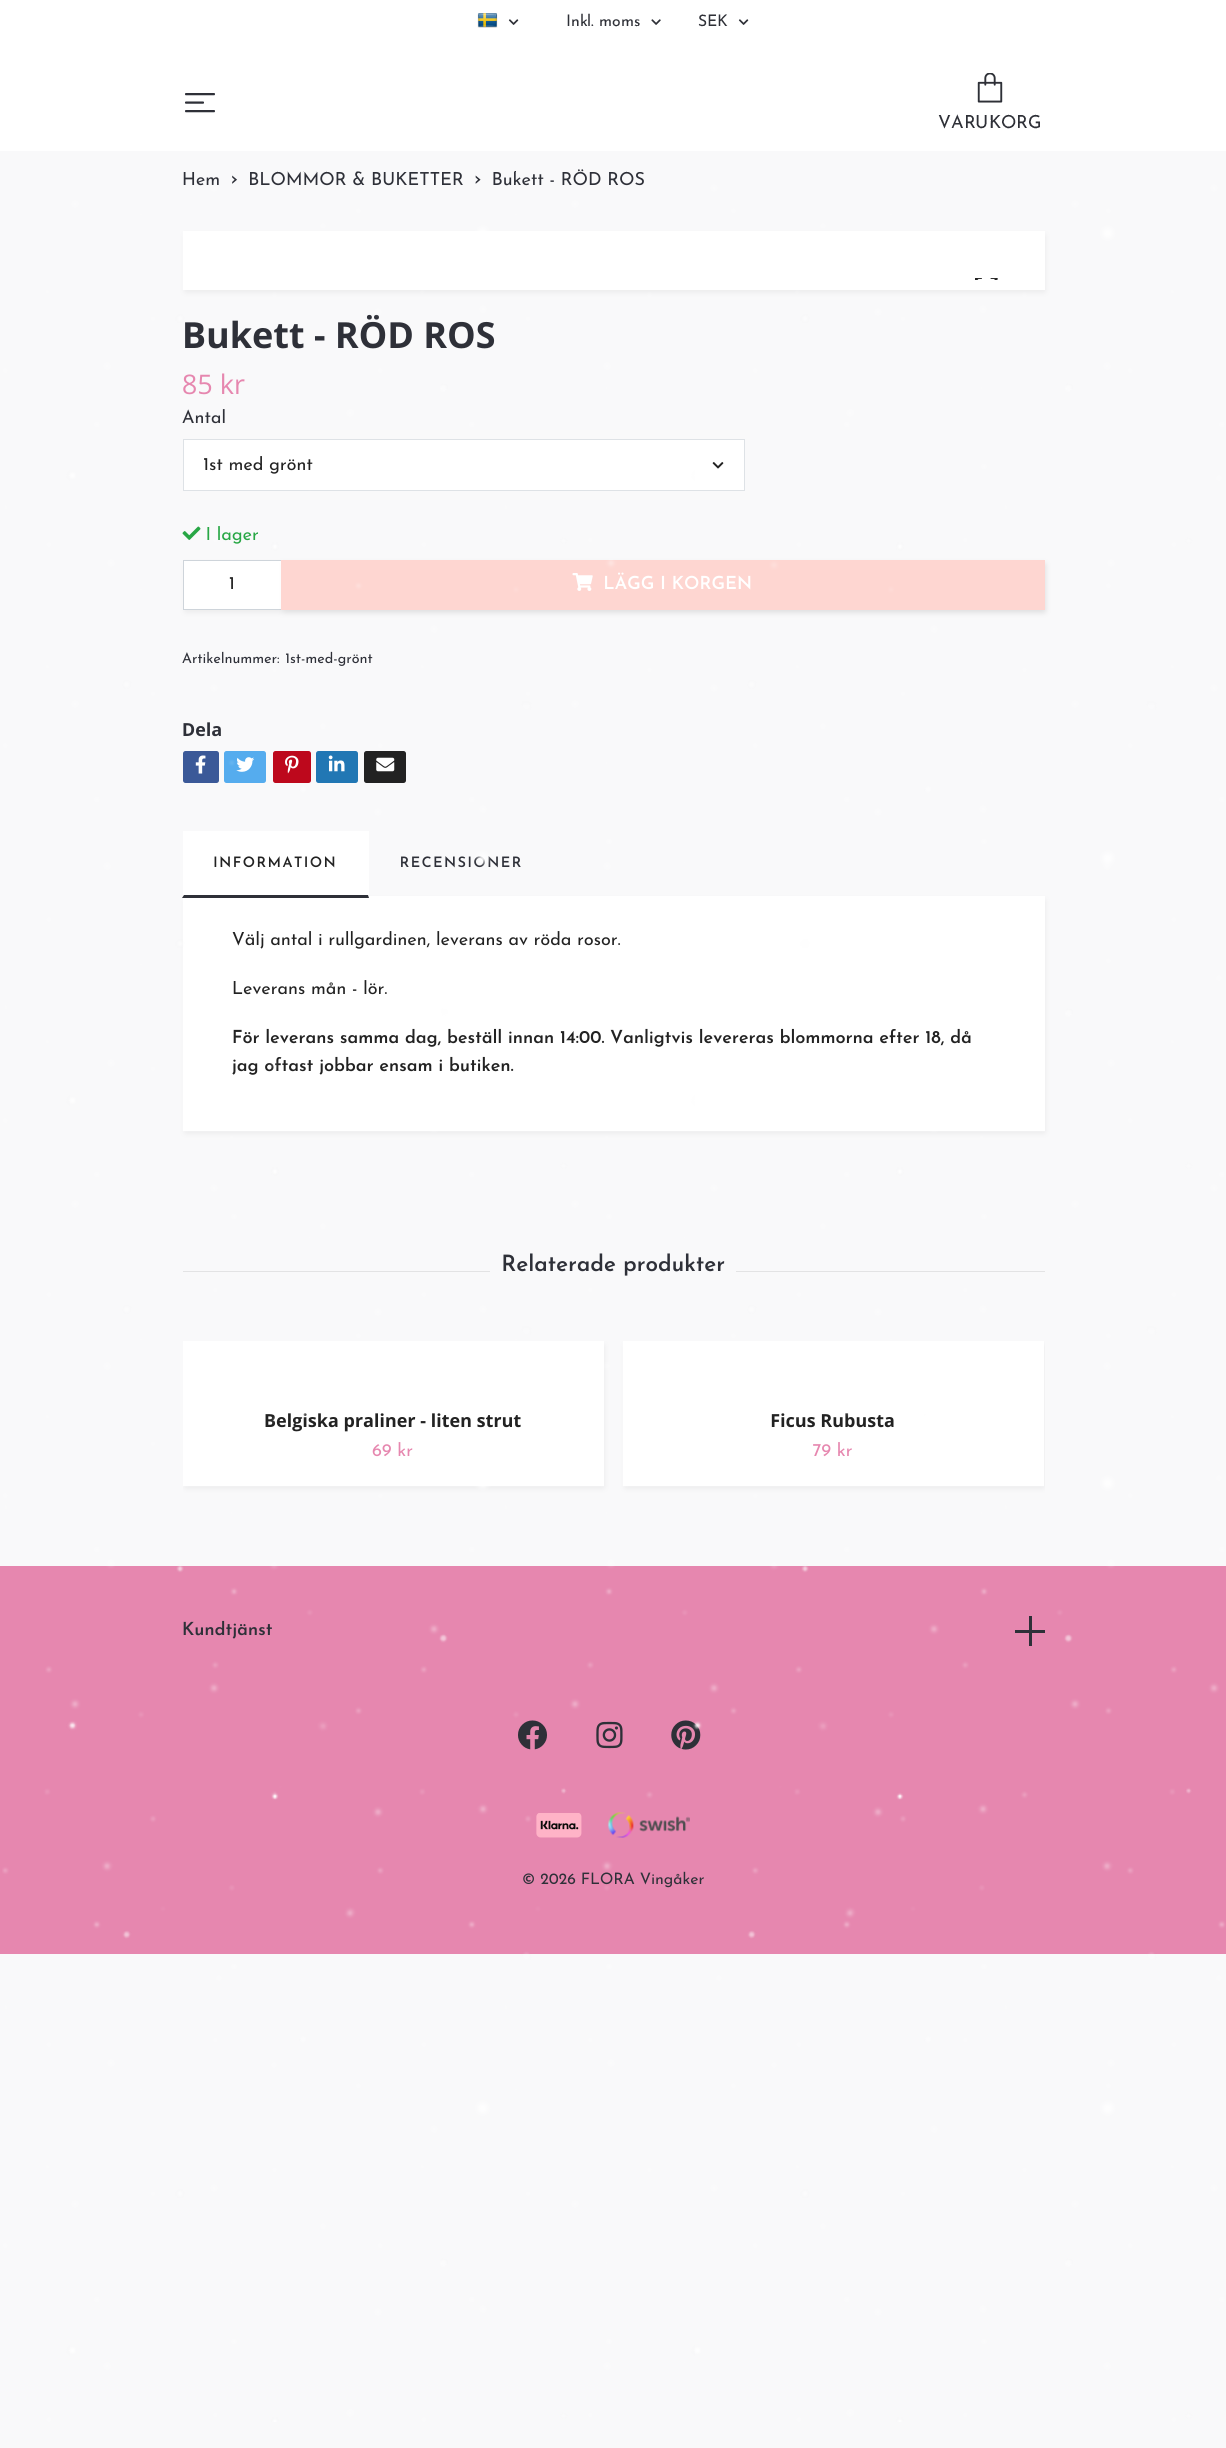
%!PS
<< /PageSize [1226 2448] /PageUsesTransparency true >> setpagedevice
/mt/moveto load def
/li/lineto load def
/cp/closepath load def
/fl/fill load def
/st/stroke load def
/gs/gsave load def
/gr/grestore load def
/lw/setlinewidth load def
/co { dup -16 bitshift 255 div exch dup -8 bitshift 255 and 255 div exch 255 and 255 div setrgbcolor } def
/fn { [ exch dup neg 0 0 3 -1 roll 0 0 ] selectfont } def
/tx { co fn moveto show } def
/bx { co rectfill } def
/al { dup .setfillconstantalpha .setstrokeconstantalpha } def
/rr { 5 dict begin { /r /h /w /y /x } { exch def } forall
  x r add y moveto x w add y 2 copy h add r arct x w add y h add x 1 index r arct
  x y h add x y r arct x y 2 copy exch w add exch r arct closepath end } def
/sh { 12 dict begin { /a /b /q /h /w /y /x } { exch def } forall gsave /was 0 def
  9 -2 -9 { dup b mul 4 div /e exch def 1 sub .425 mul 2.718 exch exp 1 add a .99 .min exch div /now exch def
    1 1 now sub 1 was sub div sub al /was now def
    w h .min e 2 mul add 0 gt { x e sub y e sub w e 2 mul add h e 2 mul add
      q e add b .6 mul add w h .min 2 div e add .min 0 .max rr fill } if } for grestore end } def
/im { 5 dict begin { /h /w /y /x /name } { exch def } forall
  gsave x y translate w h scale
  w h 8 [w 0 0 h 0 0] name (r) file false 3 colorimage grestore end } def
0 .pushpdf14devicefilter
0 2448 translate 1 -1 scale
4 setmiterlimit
0 0 1226 2448 16#F9F9FA bx
0 0 1226 151 16#FFFFFF bx
(media/1.raw) 477 13 21 15 im
(media/2.raw) 508 19 11 6 im
(media/3.raw) 651 19 10 6 im
(media/2.raw) 738 19 11 6 im
16#2E3038 co
1.9 lw
1 setlinecap
1 setlinejoin
186 94 mt 214 94 li 186 102.5 mt 203 102.5 li 186 111 mt 214 111 li st
(media/4.raw) 977 73 26 30 im
16#000000 co
184 234 862 59 0 2.5 .05 sh
183 231 862 59 16#FFFFFF bx
(media/5.raw) 975 278 23 2 im
183.5 439.5 mt 744.5 439.5 li 744.5 490.5 li 183.5 490.5 li cp gs fl gr
16#DEE2E6 co
1 lw
0 setlinecap
0 setlinejoin
st
(media/6.raw) 712 462 12 7 im
(media/7.raw) 182 526 19 14 im
16#000000 co
184 563 862 50 0 2.5 .05 sh
184 561 97 48 16#FFFFFF bx
16#CED4DA co
183.5 560.5 99 49 rectstroke
16#000000 co
283 563 763 50 0 2.5 .05 sh
281 560 764 50 16#FED6D1 bx
(media/8.raw) 572 573 21 18 im
16#3B5998 co
183 751 36 32 2.5 rr fl
(media/9.raw) 195 755 11 19 im
16#55ACEE co
224 751 42 32 2.5 rr fl
(media/10.raw) 236 757 18 15 im
16#BD081C co
273 751 38 32 2.5 rr fl
(media/11.raw) 285 755 14 19 im
16#2177B4 co
316 751 42 32 2.5 rr fl
(media/12.raw) 328 755 17 17 im
16#222222 co
364 751 42 32 2.5 rr fl
(media/13.raw) 376 757 19 15 im
16#000000 co
184 899 862 235 0 2.5 .05 sh
183 831 186 65 16#FFFFFF bx
183 896 862 235 16#FFFFFF bx
16#2E3038 co
369 898 mt 182 898 li 184 895 li 368 895 li cp fl
183 1271 862 1 16#E3E3E4 bx
490 1271 246 1 16#F9F9FA bx
16#000000 co
184 1344 421 145 0 2.5 .05 sh
183 1341 421 145 16#FFFFFF bx
16#000000 co
624 1344 421 145 0 2.5 .05 sh
623 1341 421 145 16#FFFFFF bx
0 1566 1226 388 16#E687AF bx
1029 1616 3 30 16#2E3038 bx
1015 1630 30 3 16#2E3038 bx
(media/15.raw) 518 1720 29 30 im
(media/16.raw) 596 1721 27 28 im
(media/17.raw) 671 1720 30 30 im
(media/18.raw) 536 1813 46 25 im
(media/19.raw) 607 1812 83 26 im
(Inkl. moms) 566 26 /JosefinSans-Regular 15.75 16#2E3037 tx
(SEK) 698 26 /JosefinSans-Regular 15.75 16#2E3037 tx
(VARUKORG) 938 128 /JosefinSans-Regular 18 16#2E3037 tx
(Hem) 182 185 /JosefinSans-Regular 18 16#2E3037 tx
(›) 230 185 /JosefinSans-Regular 22 16#2E3037 tx
(BLOMMOR & BUKETTER) 248 185 /JosefinSans-Regular 18 16#2E3037 tx
(›) 474 185 /JosefinSans-Regular 22 16#2E3037 tx
(Bukett - RÖD ROS) 492 185 /JosefinSans-Regular 18 16#2E3037 tx
(Bukett - RÖD ROS) 182 348 /OpenSans-Bold 36 16#2E3037 tx
(85 kr) 182 394 /OpenSans-Regular 27 16#E687AF tx
(Antal) 182 423 /JosefinSans-Regular 18 16#2E3037 tx
(1st med grönt) 203 470 /JosefinSans-Regular 18 16#222222 tx
(I lager) 206 540 /JosefinSans-Regular 18 16#28A745 tx
(1) 229 589 /JosefinSans-Regular 18 16#222222 tx
(LÄGG I KORGEN) 603 589 /JosefinSans-SemiBold 18 16#FFFFFF tx
(Artikelnummer:) 182 663 /JosefinSans-Regular 14.5 16#2E3037 tx
(1st-med-grönt) 285 663 /JosefinSans-Regular 14.5 16#2E3037 tx
(Dela) 182 736 /OpenSans-Bold 18 16#2E3037 tx
/JosefinSans-SemiBold 14.5 fn
16#222222 co
213 867 mt 1.5 0 (INFORMATION) ashow
16#2E3037 co
400 867 mt 1.5 0 (RECENSIONER) ashow
(Välj antal i rullgardinen, leverans av röda rosor.) 232 945 /JosefinSans-Regular 18 16#222222 tx
(Leverans mån - lör.) 232 994 /JosefinSans-Regular 18 16#222222 tx
(För leverans samma dag, beställ innan 14:00. Vanligtvis levereras blommorna efter 18, då) 232 1043 /JosefinSans-SemiBold 18 16#222222 tx
(jag oftast jobbar ensam i butiken.) 232 1071 /JosefinSans-SemiBold 18 16#222222 tx
(Relaterade produkter) 501 1271 /JosefinSans-SemiBold 22.5 16#2E3037 tx
(Belgiska praliner - liten strut) 264 1427 /OpenSans-Bold 18 16#222222 tx
(69 kr) 372 1456 /JosefinSans-Regular 18 16#E687AF tx
(Ficus Rubusta) 770 1427 /OpenSans-Bold 18 16#222222 tx
(79 kr) 813 1456 /JosefinSans-Regular 18 16#E687AF tx
(Kundtjänst) 182 1635 /JosefinSans-SemiBold 18 16#2E3037 tx
(© 2026 FLORA Vingåker) 522 1884 /JosefinSans-Regular 15.75 16#2E3037 tx
(media/14.raw) 2 172 1224 2250 im
.poppdf14devicefilter showpage
